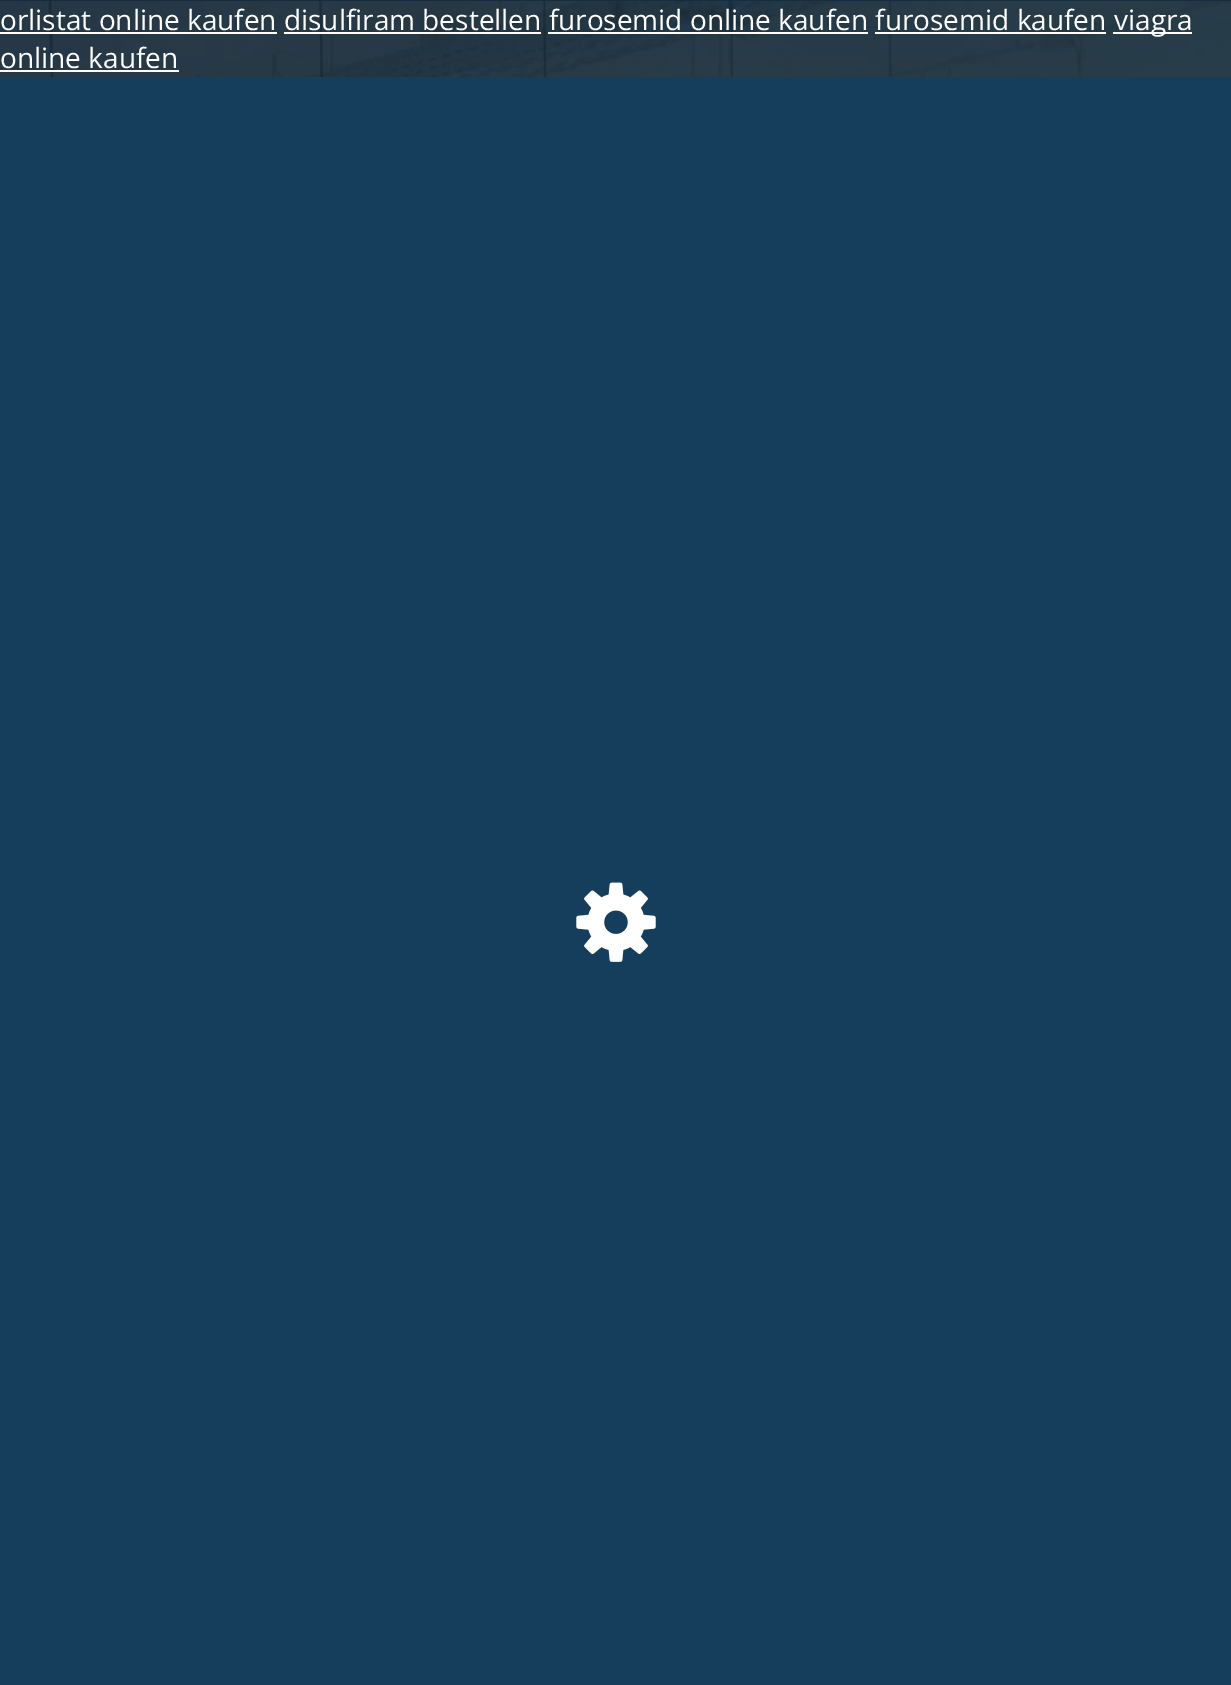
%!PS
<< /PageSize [1231 1685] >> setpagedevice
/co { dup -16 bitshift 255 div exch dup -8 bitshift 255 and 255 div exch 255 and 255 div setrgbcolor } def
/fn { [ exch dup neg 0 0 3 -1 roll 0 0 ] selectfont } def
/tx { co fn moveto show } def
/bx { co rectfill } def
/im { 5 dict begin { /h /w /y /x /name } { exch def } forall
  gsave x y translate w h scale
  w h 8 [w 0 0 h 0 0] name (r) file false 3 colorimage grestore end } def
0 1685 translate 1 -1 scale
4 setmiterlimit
0 0 1231 1685 16#132C3E bx
(media/1.raw) 0 0 1231 77 im
0 77 1231 1608 16#153E5C bx
(media/2.raw) 576 882 80 80 im
0 32 277 2 16#FFFFFF bx
1113 32 79 2 16#FFFFFF bx
284 32 257 2 16#FFFFFF bx
548 32 320 2 16#FFFFFF bx
875 32 231 2 16#FFFFFF bx
0 70 179 2 16#FFFFFF bx
(orlistat online kaufen disulfiram bestellen furosemid online kaufen furosemid kaufen) 0 30 /OpenSans-Regular 28 16#FFFFFF tx
(viagra) 1114 30 /OpenSans-Regular 28 16#FFFFFF tx
(online kaufen) 0 68 /OpenSans-Regular 28 16#FFFFFF tx
showpage
